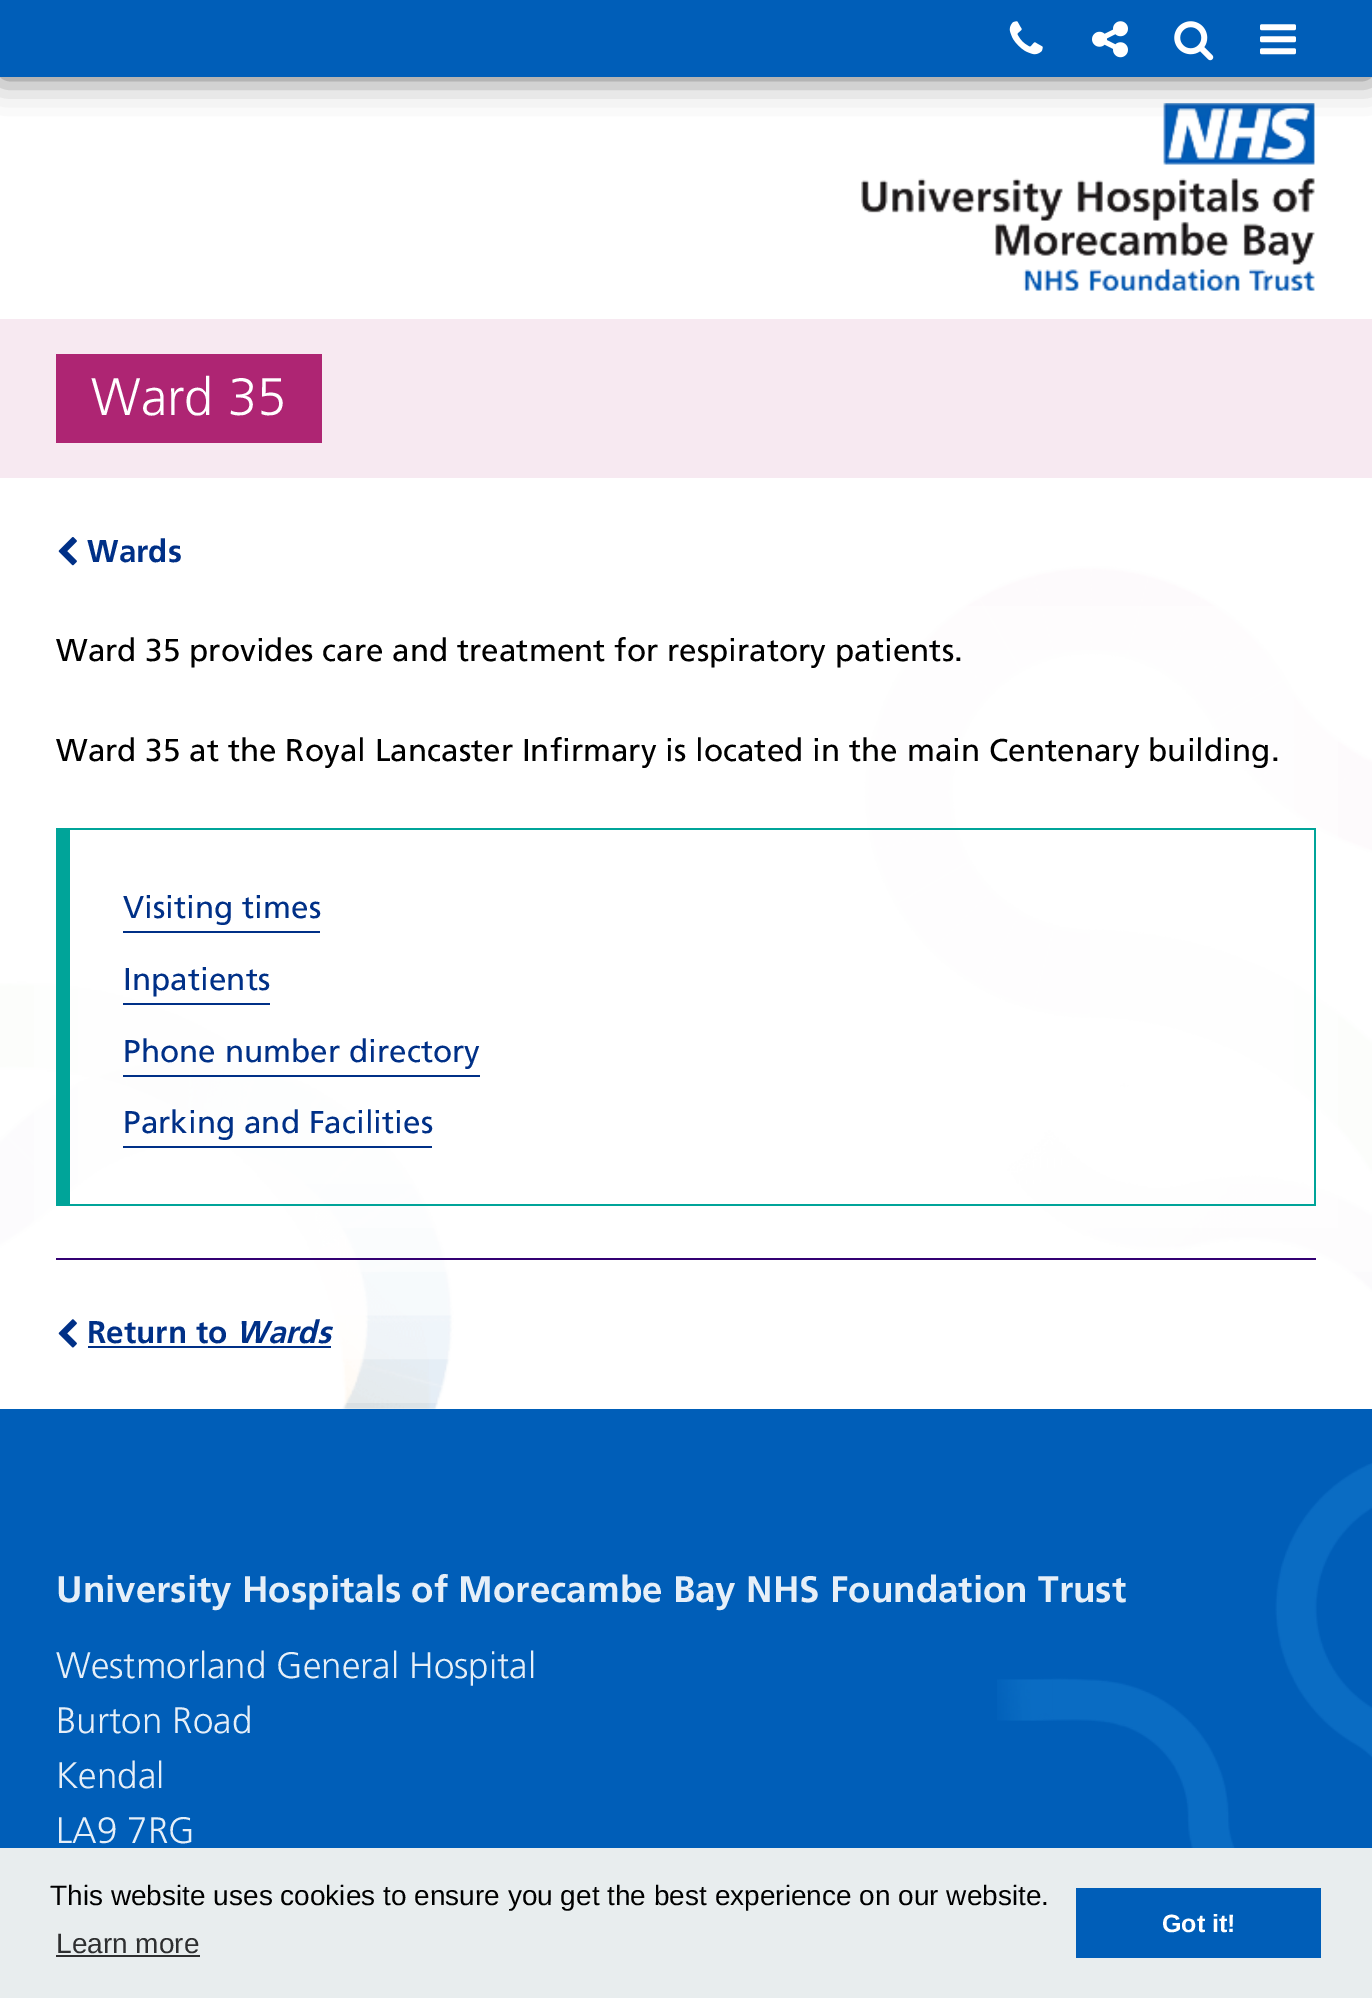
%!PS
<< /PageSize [1372 1998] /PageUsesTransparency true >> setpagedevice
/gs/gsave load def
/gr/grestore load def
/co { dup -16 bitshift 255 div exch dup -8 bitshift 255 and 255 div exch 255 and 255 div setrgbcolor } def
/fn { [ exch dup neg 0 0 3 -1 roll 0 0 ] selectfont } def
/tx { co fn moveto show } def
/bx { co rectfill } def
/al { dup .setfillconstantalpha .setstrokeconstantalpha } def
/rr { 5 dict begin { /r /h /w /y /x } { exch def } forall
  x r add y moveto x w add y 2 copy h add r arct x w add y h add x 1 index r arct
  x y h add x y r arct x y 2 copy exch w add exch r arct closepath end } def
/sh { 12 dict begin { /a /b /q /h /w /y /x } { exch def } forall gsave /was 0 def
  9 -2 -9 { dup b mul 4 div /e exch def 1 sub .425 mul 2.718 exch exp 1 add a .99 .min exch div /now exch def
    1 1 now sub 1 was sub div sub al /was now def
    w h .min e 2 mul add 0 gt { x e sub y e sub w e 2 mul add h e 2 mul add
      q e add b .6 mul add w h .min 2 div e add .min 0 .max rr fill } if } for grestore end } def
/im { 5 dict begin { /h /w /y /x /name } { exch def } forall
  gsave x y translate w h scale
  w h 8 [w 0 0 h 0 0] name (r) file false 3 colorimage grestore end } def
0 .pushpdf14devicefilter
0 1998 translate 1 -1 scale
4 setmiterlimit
0 0 1372 1998 16#FFFFFF bx
(media/5.raw) 861 103 454 188 im
16#666666 co
0 0 1372 77 0 17.5 1 sh
0 0 1372 77 16#005EB8 bx
(media/1.raw) 1009 21 34 34 im
(media/2.raw) 1092 21 36 37 im
(media/3.raw) 1174 21 40 40 im
(media/4.raw) 1260 24 36 31 im
0 319 1372 159 16#F7E9F1 bx
56 354 266 89 16#AE2573 bx
(media/6.raw) 0 566 1372 843 im
gs
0 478 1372 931 rectclip
16#FFFFFF co
-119 453 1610 928 0 87.5 1 sh
gr
(media/7.raw) 58 537 19 29 im
70 828 1246 2 16#00A499 bx
1314 828 2 378 16#00A499 bx
70 1204 1246 2 16#00A499 bx
56 828 14 378 16#00A499 bx
123 931 197 2 16#003087 bx
123 1003 147 2 16#003087 bx
123 1075 357 2 16#003087 bx
123 1146 309 2 16#003087 bx
56 1258 1260 2 16#330072 bx
(media/8.raw) 58 1319 19 29 im
88 1346 243 2 16#003087 bx
0 1409 1372 439 16#005EB8 bx
(media/9.raw) 997 1463 375 385 im
0 1848 1372 150 16#E8EDEE bx
56 1955 144 2 16#2E2F30 bx
1076 1888 245 70 16#005EB8 bx
(Ward 35) 91 415 /Frutiger-Light 52.5 16#FFFFFF tx
(Wards) 87 562 /Frutiger-Bold 31.5 16#003087 tx
(Ward 35 provides care and treatment for respiratory patients.) 56 661 /Frutiger-Regular 31.5 16#000000 tx
(Ward 35 at the Royal Lancaster Infirmary is located in the main Centenary building.) 56 761 /Frutiger-Regular 31.5 16#000000 tx
(Visiting times) 123 918 /Frutiger-Regular 31.5 16#003087 tx
(Inpatients) 123 990 /Frutiger-Regular 31.5 16#003087 tx
(Phone number directory) 123 1062 /Frutiger-Regular 31.5 16#003087 tx
(Parking and Facilities) 123 1133 /Frutiger-Regular 31.5 16#003087 tx
(Return to) 87 1343 /Frutiger-Bold 31.5 16#003087 tx
(Wards) 236 1343 /Frutiger-BoldItalic 31.5 16#003087 tx
(University Hospitals of Morecambe Bay NHS Foundation Trust) 56 1602 /Frutiger-Bold 36.75 16#E6EFF8 tx
(Westmorland General Hospital) 56 1678 /Frutiger-Light 36.75 16#E6EFF8 tx
(Burton Road) 56 1733 /Frutiger-Light 36.75 16#E6EFF8 tx
(Kendal) 56 1788 /Frutiger-Light 36.75 16#E6EFF8 tx
(LA9 7RG) 56 1843 /Frutiger-Light 36.75 16#E6EFF8 tx
(This website uses cookies to ensure you get the best experience on our website.) 50 1905 /LiberationSans-Regular 28 16#000000 tx
(Learn more) 56 1953 /LiberationSans-Regular 28 16#2E2F30 tx
(Got it!) 1162 1932 /LiberationSans-Bold 25 16#FFFFFF tx
.poppdf14devicefilter showpage
